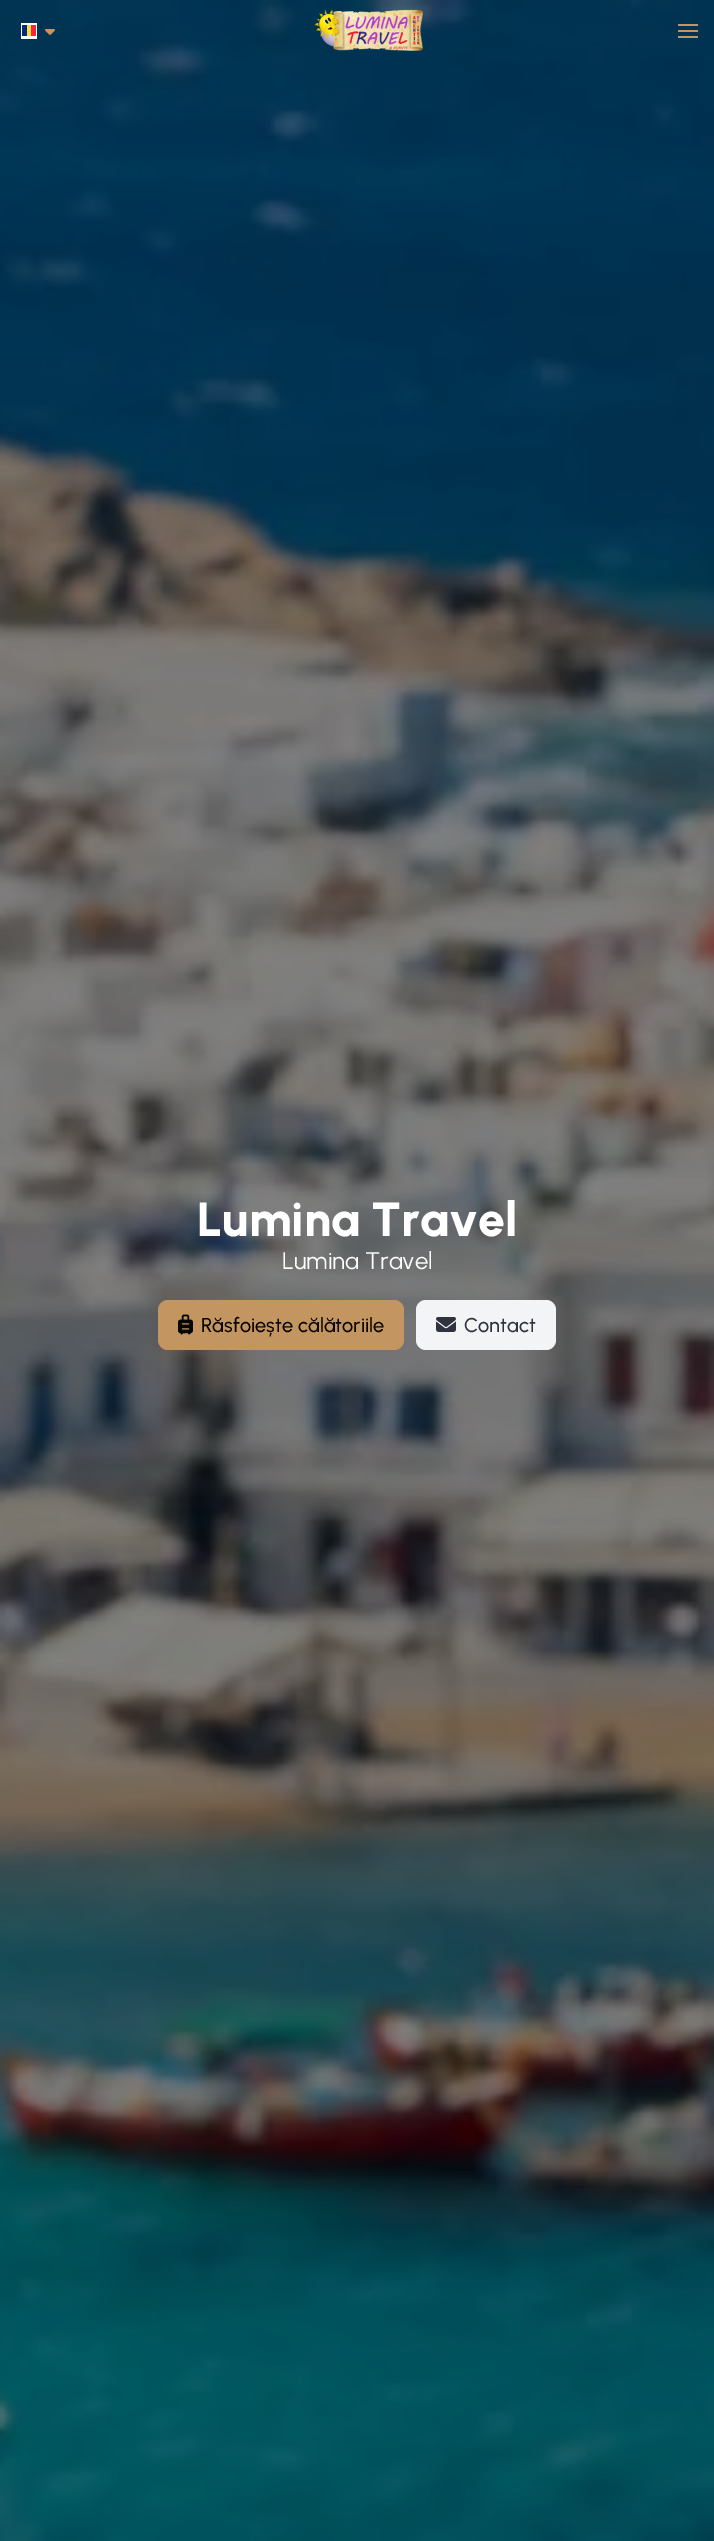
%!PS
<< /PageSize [714 2541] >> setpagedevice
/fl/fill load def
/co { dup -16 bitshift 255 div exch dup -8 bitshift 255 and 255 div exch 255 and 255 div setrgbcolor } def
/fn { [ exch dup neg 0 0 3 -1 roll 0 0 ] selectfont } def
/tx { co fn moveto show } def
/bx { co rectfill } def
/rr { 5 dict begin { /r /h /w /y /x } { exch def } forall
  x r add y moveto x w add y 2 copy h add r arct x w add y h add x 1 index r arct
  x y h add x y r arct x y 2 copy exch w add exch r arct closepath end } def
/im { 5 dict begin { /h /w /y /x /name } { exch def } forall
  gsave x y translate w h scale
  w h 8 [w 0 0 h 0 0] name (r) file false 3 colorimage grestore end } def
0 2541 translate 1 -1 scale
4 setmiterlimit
0 0 714 2541 16#FFFFFF bx
(media/1.raw) 0 0 714 2541 im
(media/2.raw) 21 23 16 16 im
(media/3.raw) 45 29 10 6 im
(media/4.raw) 314 9 109 43 im
678 24 20 2 16#C39560 bx
678 30 20 2 16#C39560 bx
678 36 20 2 16#C39560 bx
158 1300 246 50 10 rr fl
(media/5.raw) 178 1314 15 21 im
16#F3F4F6 co
416 1300 140 50 10 rr fl
(media/6.raw) 436 1317 20 15 im
(Lumina Travel) 197 1236 /Urbanist-ExtraBold 48 16#FFFFFF tx
(Lumina Travel) 282 1269 /Urbanist-Regular 24 16#FFFFFF tx
(Răsfoiește călătoriile) 201 1332 /Urbanist-Medium 20 16#070503 tx
(Contact) 464 1332 /Urbanist-Medium 20 16#2E333D tx
showpage
